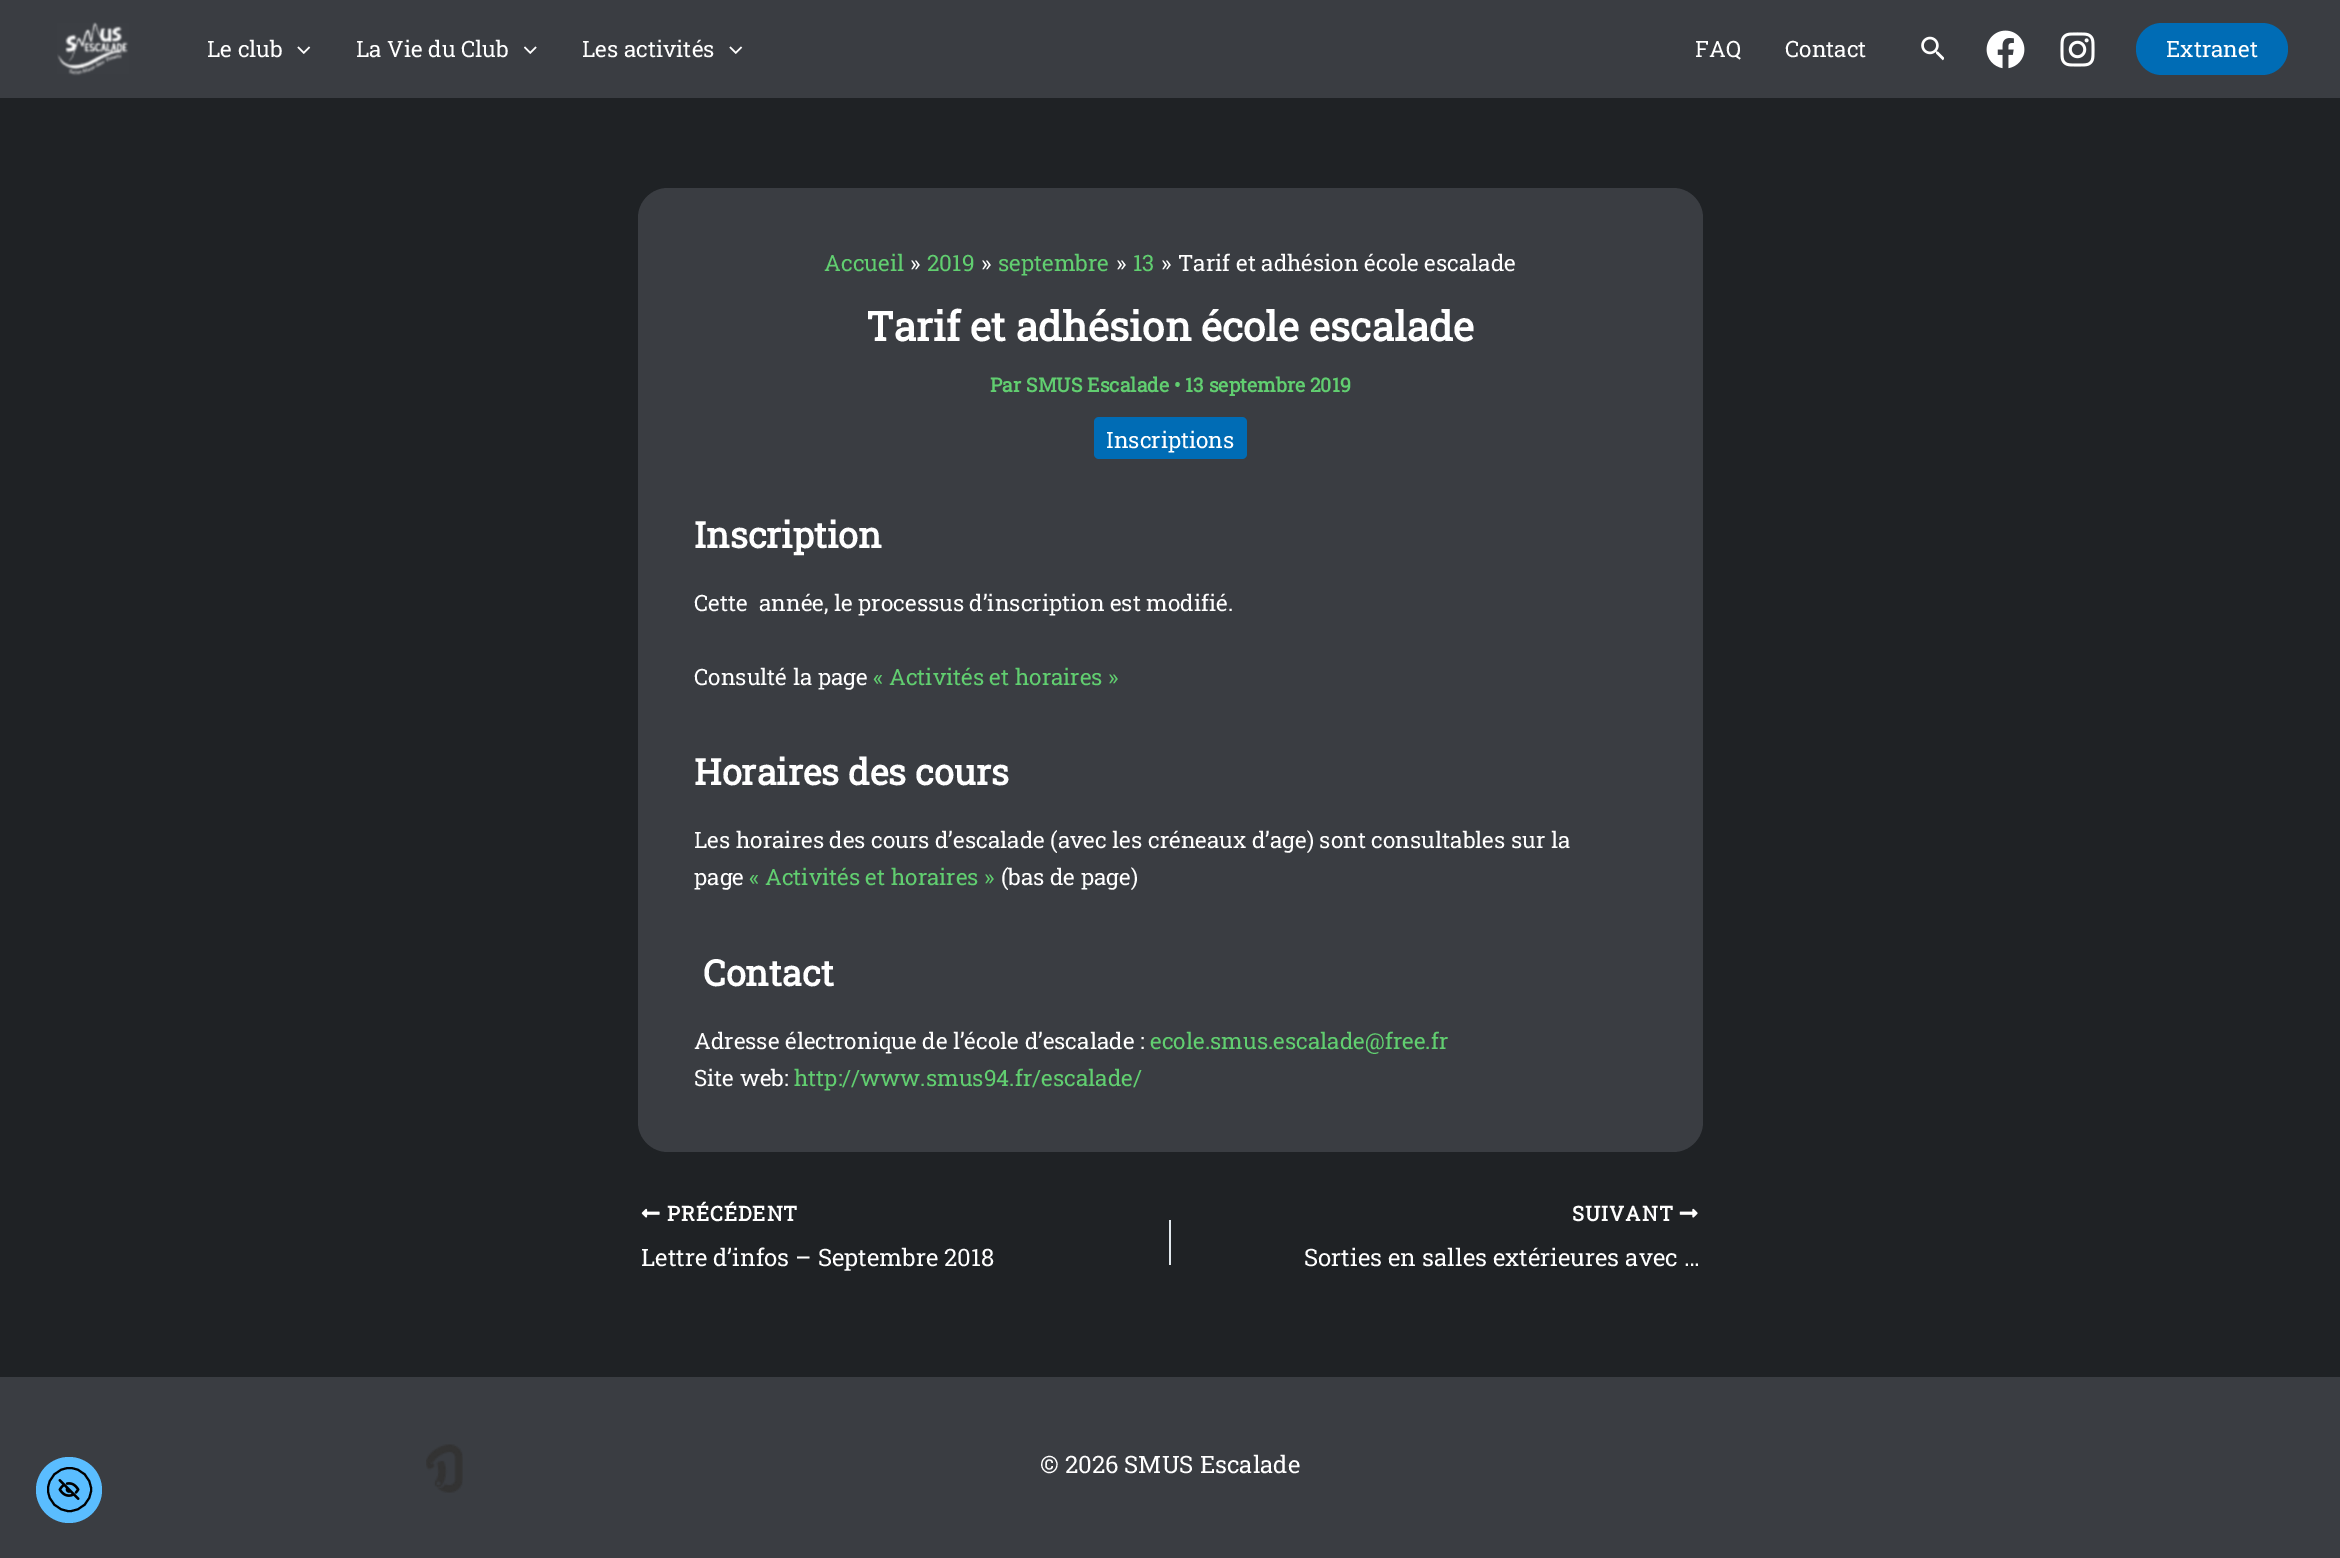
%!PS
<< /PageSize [2340 1558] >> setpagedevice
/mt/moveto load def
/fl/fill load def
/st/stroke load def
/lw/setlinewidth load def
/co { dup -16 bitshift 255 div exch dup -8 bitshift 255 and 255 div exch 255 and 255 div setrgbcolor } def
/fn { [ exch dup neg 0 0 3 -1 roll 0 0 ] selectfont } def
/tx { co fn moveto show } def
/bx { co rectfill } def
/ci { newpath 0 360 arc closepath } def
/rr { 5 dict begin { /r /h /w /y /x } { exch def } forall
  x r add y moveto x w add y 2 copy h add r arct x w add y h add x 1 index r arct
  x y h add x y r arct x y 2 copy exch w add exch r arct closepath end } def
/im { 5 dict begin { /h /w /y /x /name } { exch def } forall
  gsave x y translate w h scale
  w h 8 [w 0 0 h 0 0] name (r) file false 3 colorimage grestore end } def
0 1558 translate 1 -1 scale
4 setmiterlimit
0 0 2340 1558 16#1F2225 bx
0 0 2340 98 16#3A3D42 bx
(media/1.raw) 57 22 72 54 im
(media/2.raw) 297 46 14 8 im
(media/3.raw) 524 46 13 8 im
(media/2.raw) 729 46 14 8 im
(media/4.raw) 1921 36 23 25 im
(media/5.raw) 1986 30 39 39 im
(media/6.raw) 2060 32 35 35 im
16#006CB5 co
2136 23 152 52 26 rr fl
16#3A3D42 co
638 188 1065 964 30 rr fl
16#006CB5 co
1094 417 153 42 5 rr fl
(media/7.raw) 641 1208 19 10 im
1169 1220 2 45 16#E1E8ED bx
(media/8.raw) 1679 1208 19 10 im
0 1377 2340 181 16#3A3D42 bx
(media/9.raw) 426 1444 37 49 im
16#5ABDFF co
69 1490 33 ci fl
16#000000 co
2 lw
69.5 1489.5 21.5 ci st
(media/10.raw) 58 1479 22 21 im
(Le club) 207 57 /RobotoSlab-Regular 22.5 16#FFFFFF tx
(La Vie du Club) 356 57 /RobotoSlab-Regular 22.5 16#FFFFFF tx
(Les activités) 582 57 /RobotoSlab-Regular 22.5 16#FFFFFF tx
(FAQ) 1695 57 /RobotoSlab-Regular 22.5 16#FFFFFF tx
(Contact) 1785 57 /RobotoSlab-Regular 22.5 16#FFFFFF tx
(Extranet) 2166 57 /RobotoSlab-Regular 22.5 16#FFFFFF tx
(Accueil) 824 271 /RobotoSlab-Regular 22.5 16#61CE70 tx
(») 910 271 /RobotoSlab-Regular 22.5 16#FFFFFF tx
(2019) 927 271 /RobotoSlab-Regular 22.5 16#61CE70 tx
(») 981 271 /RobotoSlab-Regular 22.5 16#FFFFFF tx
(septembre) 998 271 /RobotoSlab-Regular 22.5 16#61CE70 tx
(») 1116 271 /RobotoSlab-Regular 22.5 16#FFFFFF tx
(13) 1133 271 /RobotoSlab-Regular 22.5 16#61CE70 tx
(») 1161 271 /RobotoSlab-Regular 22.5 16#FFFFFF tx
(Tarif et adhésion école escalade) 1178 271 /RobotoSlab-Regular 22.5 16#FFFFFF tx
(Tarif et adhésion école escalade) 866 341 /RobotoSlab-Bold 40.5 16#FFFFFF tx
(Par SMUS Escalade • 13 septembre 2019) 990 392 /RobotoSlab-Bold 19.5 16#61CE70 tx
(Inscriptions) 1106 448 /RobotoSlab-Regular 22.5 16#FFFFFF tx
(Inscription) 694 548 /RobotoSlab-Bold 36 16#FFFFFF tx
(Cette  année, le processus d’inscription est modifié.) 694 611 /RobotoSlab-Regular 22.5 16#FFFFFF tx
(Consulté la page) 694 685 /RobotoSlab-Regular 22.5 16#FFFFFF tx
(« Activités et horaires ») 873 685 /RobotoSlab-Regular 22.5 16#61CE70 tx
(Horaires des cours) 694 785 /RobotoSlab-Bold 36 16#FFFFFF tx
(Les horaires des cours d’escalade \(avec les créneaux d’age\) sont consultables sur la) 694 848 /RobotoSlab-Regular 22.5 16#FFFFFF tx
(page) 694 885 /RobotoSlab-Regular 22.5 16#FFFFFF tx
(« Activités et horaires ») 749 885 /RobotoSlab-Regular 22.5 16#61CE70 tx
(\(bas de page\)) 1001 885 /RobotoSlab-Regular 22.5 16#FFFFFF tx
(Contact) 703 986 /RobotoSlab-Bold 36 16#FFFFFF tx
(Adresse électronique de l’école d’escalade :) 694 1049 /RobotoSlab-Regular 22.5 16#FFFFFF tx
(ecole.smus.escalade@free.fr) 1150 1049 /RobotoSlab-Regular 22.5 16#61CE70 tx
(Site web:) 694 1086 /RobotoSlab-Regular 22.5 16#FFFFFF tx
(http://www.smus94.fr/escalade/) 794 1086 /RobotoSlab-Regular 22.5 16#61CE70 tx
/RobotoSlab-Bold 20.5 fn
16#FFFFFF co
667 1221 mt 1 0 (PRÉCÉDENT) ashow
(Lettre d’infos – Septembre 2018) 641 1266 /RobotoSlab-Regular 24 16#FFFFFF tx
/RobotoSlab-Bold 20.5 fn
1572 1221 mt 1 0 (SUIVANT) ashow
(Sorties en salles extérieures avec …) 1304 1266 /RobotoSlab-Regular 24 16#FFFFFF tx
(© 2026 SMUS Escalade) 1040 1473 /RobotoSlab-Regular 24 16#FFFFFF tx
showpage
